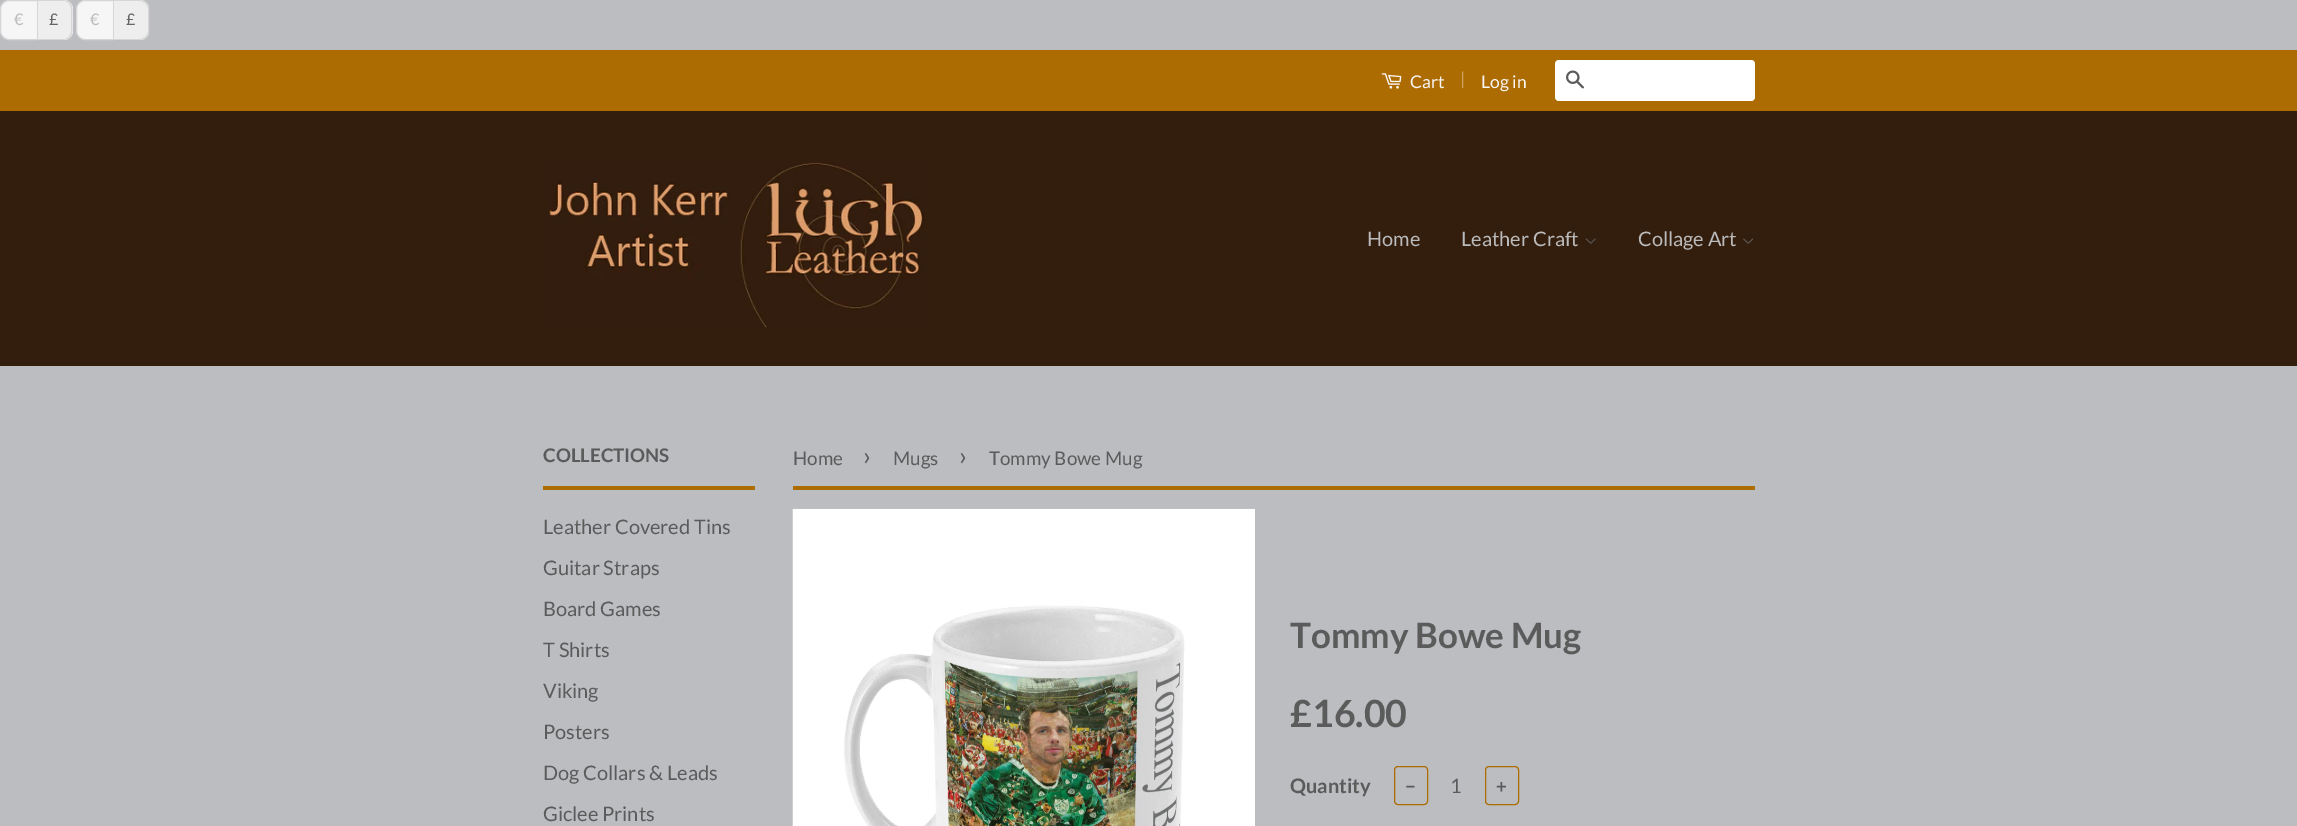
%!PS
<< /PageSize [2297 826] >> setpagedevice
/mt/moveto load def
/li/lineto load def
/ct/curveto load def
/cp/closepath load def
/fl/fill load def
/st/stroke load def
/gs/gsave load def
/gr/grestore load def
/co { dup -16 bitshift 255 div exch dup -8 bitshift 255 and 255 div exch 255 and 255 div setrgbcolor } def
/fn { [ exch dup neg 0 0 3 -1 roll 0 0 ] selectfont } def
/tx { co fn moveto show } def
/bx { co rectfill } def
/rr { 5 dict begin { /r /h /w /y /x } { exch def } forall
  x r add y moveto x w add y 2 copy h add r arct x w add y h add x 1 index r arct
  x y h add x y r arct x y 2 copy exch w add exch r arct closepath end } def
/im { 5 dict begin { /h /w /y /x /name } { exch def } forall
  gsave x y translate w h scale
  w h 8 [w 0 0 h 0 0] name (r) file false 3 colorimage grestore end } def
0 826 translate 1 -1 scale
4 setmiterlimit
0 0 2297 826 16#BBBDC0 bx
16#F6F6F6 co
9 .5 mt 37.5 .5 li 37.5 39.5 li 9 39.5 li 4.5 39.5 .5 35.5 .5 31 ct .5 9 li .5 4.5 4.5 .5 9 .5 ct cp gs fl gr
16#D6D6D6 co
st
16#EEEEEE co
38 0 mt 64 0 li 69 0 73 4 73 9 ct 73 31 li 73 36 69 40 64 40 ct 38 40 li cp fl
16#D6D6D6 co
38 0 mt 59 0 li 75 0 72 7 72 20 ct 72 33 75 40 59 40 ct 38 40 li cp 38 1 mt 64 1 li 68 1 71 5 71 9 ct 71 31 li 71 35 68 39 64 39 ct 38 39 li cp eofill
16#F6F6F6 co
85 .5 mt 113.5 .5 li 113.5 39.5 li 85 39.5 li 80.5 39.5 76.5 35.5 76.5 31 ct 76.5 9 li 76.5 4.5 80.5 .5 85 .5 ct cp gs fl gr
16#D6D6D6 co
st
16#EEEEEE co
114 0 mt 140 0 li 145 0 149 4 149 9 ct 149 31 li 149 36 145 40 140 40 ct 114 40 li cp fl
16#D6D6D6 co
114 0 mt 136 0 li 151 0 149 7 149 20 ct 149 33 151 40 136 40 ct 114 40 li cp 114 1 mt 140 1 li 144 1 148 5 148 9 ct 148 31 li 148 35 144 39 140 39 ct 114 39 li cp eofill
0 50 2297 61 16#AC6C01 bx
(media/1.raw) 1381 73 21 16 im
16#FFFFFF co
1555 60 200 41 4 rr fl
(media/2.raw) 1566 70 18 19 im
0 111 2297 255 16#331D0D bx
(media/3.raw) 549 163 376 165 im
(media/4.raw) 1585 238 11 6 im
(media/5.raw) 1743 238 11 6 im
543 486 212 4 16#AC6C01 bx
793 486 962 4 16#AC6C01 bx
(media/6.raw) 792 508 463 318 im
1394.5 766.5 33 38 3.5 rr st
1485.5 766.5 33 38 3.5 rr st
(€) 14 25 /Lato-Regular 16 16#BBBBBB tx
(£) 49 25 /Lato-Regular 16 16#666666 tx
(€) 90 25 /Lato-Regular 16 16#BBBBBB tx
(£) 126 25 /Lato-Regular 16 16#666666 tx
(Cart) 1410 88 /Lato-Regular 17.5 16#F9F6F6 tx
(|) 1460 85 /Lato-Regular 17.5 16#CBA363 tx
(Log in) 1481 88 /Lato-Regular 17.5 16#F9F6F6 tx
(Home) 1367 246 /Lato-Regular 20 16#BBBBBB tx
(Leather Craft) 1461 246 /Lato-Regular 20 16#BBBBBB tx
(Collage Art) 1638 246 /Lato-Regular 20 16#BBBBBB tx
(COLLECTIONS) 543 462 /Lato-Bold 18.75 16#5B5B5B tx
(Leather Covered Tins) 543 534 /Lato-Regular 20 16#5B5B5B tx
(Guitar Straps) 543 575 /Lato-Regular 20 16#5B5B5B tx
(Board Games) 543 616 /Lato-Regular 20 16#5B5B5B tx
(T Shirts) 543 657 /Lato-Regular 20 16#5B5B5B tx
(Viking) 543 698 /Lato-Regular 20 16#5B5B5B tx
(Posters) 543 739 /Lato-Regular 20 16#5B5B5B tx
(Dog Collars & Leads) 543 780 /Lato-Regular 20 16#5B5B5B tx
(Giclee Prints) 543 821 /Lato-Regular 20 16#5B5B5B tx
(Home) 793 465 /Lato-Regular 18.75 16#5B5B5B tx
(›) 863 465 /Lato-Regular 26 16#5B5B5B tx
(Mugs) 893 465 /Lato-Regular 18.75 16#5B5B5B tx
(›) 959 465 /Lato-Regular 26 16#5B5B5B tx
(Tommy Bowe Mug) 989 465 /Lato-Regular 18.75 16#5B5B5B tx
(Tommy Bowe Mug) 1290 648 /Lato-Bold 35 16#5B5B5B tx
(£16.00) 1290 727 /Lato-Bold 37.5 16#5B5B5B tx
(Quantity) 1290 793 /Lato-Bold 20 16#5B5B5B tx
(−) 1405 793 /Lato-Bold 18.75 16#5B5B5B tx
(1) 1450 793 /Lato-Regular 20 16#5B5B5B tx
(+) 1496 793 /Lato-Bold 18.75 16#5B5B5B tx
showpage
